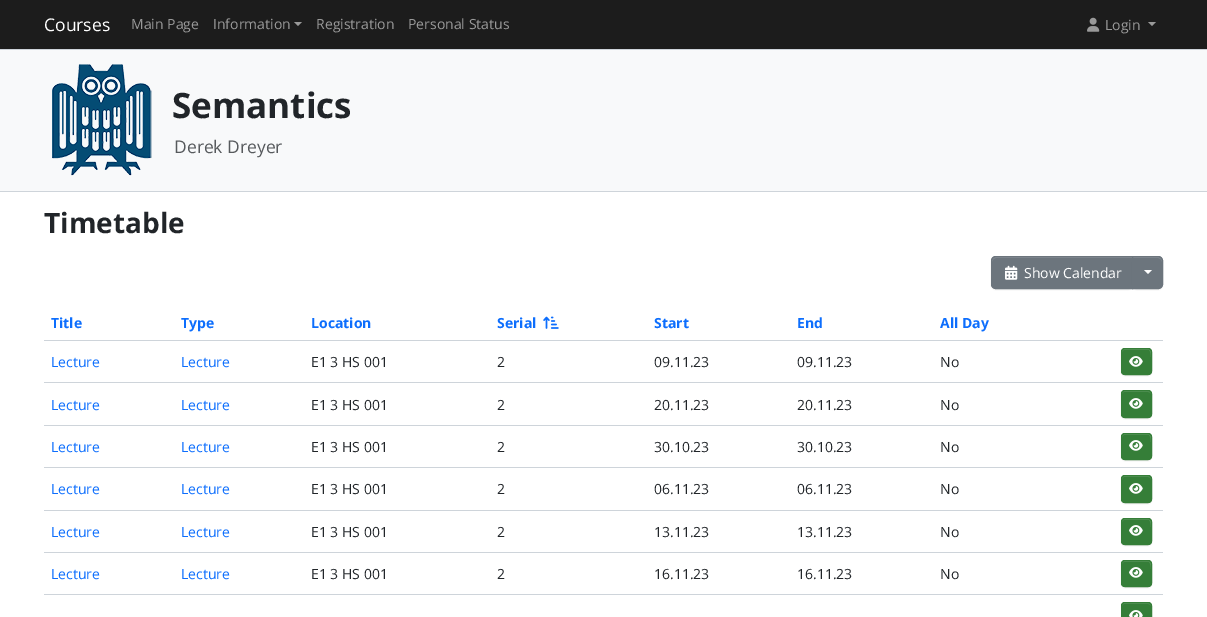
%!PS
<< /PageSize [1207 617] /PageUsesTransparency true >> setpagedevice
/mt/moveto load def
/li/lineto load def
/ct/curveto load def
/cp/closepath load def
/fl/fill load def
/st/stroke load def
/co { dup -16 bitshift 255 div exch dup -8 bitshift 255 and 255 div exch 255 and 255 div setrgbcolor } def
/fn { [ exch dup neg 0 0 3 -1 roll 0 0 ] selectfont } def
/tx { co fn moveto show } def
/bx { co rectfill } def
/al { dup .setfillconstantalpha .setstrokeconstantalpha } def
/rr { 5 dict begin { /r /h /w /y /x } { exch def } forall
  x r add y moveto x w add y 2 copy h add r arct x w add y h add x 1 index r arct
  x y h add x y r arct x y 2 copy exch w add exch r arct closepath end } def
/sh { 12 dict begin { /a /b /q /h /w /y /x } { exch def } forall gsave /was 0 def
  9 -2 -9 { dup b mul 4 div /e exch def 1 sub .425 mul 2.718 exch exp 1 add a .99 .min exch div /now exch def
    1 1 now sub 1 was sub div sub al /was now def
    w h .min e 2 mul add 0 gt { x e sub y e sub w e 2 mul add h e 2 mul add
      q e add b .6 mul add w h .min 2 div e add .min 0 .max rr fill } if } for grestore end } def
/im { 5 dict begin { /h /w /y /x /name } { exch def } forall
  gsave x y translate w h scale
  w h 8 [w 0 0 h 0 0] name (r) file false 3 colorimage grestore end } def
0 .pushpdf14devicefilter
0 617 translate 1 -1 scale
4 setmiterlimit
0 0 1207 617 16#F8F9FA bx
0 0 1207 49 16#1C1C1C bx
0 49 1207 1 16#CED4DA bx
16#999999 co
294 22 mt 302 22 li 298 26 li cp fl
(media/1.raw) 1087 17 13 15 im
1148 22 mt 1156 22 li 1152 26 li cp fl
0 191 1207 1 16#CED4DA bx
(media/2.raw) 52 64 100 112 im
0 192 1207 425 16#FFFFFF bx
16#000000 co
991 257 142 33 5 .5 .07 sh
16#6C757D co
996 256 mt 1133 256 li 1133 289 li 996 289 li 993 289 991 287 991 284 ct 991 261 li 991 258 993 256 996 256 ct cp fl
16#828A91 co
996 258 mt 1132 258 li 1132 257 li 996 257 li 994 257 992 259 992 261 ct 992 262 li 992 260 994 258 996 258 ct cp fl
16#6C757D co
996 256.5 mt 1132.5 256.5 li 1132.5 288.5 li 996 288.5 li 993.5 288.5 991.5 286.5 991.5 284 ct 991.5 261 li 991.5 258.5 993.5 256.5 996 256.5 ct cp st
(media/3.raw) 1005 265 13 15 im
16#000000 co
1132 257 31 33 5 .5 .07 sh
16#6C757D co
1132 256 mt 1158 256 li 1161 256 1163 258 1163 261 ct 1163 284 li 1163 287 1161 289 1158 289 ct 1132 289 li cp fl
16#828A91 co
1133 258 mt 1158 258 li 1160 258 1162 260 1162 262 ct 1162 261 li 1162 259 1160 257 1158 257 ct 1133 257 li cp fl
16#6C757D co
1132.5 256.5 mt 1158 256.5 li 1160.5 256.5 1162.5 258.5 1162.5 261 ct 1162.5 284 li 1162.5 286.5 1160.5 288.5 1158 288.5 ct 1132.5 288.5 li cp st
16#FFFFFF co
1144 270 mt 1152 270 li 1148 274 li cp fl
(media/4.raw) 543 316 16 13 im
44 340 1119 1 16#CED4DA bx
44 382 1119 1 16#CED4DA bx
16#000000 co
1121 349 31 27 4 .5 .07 sh
16#357E38 co
1121 348 31 27 4 rr fl
16#539156 co
1124 350 mt 1149 350 li 1150 350.5 1151 353.5 1151 357.5 ct 1151 351.5 li 1151 350 1150 349 1148.5 349 ct 1124.5 349 li 1123 349 1122 350 1122 351.5 ct 1122 352.5 li 1122 351 1123 350 1124 350 ct cp fl
16#357E38 co
1121.5 348.5 30 26 3.5 rr st
(media/5.raw) 1129 356 14 11 im
44 425 1119 1 16#CED4DA bx
16#000000 co
1121 391 31 28 4 .5 .07 sh
16#357E38 co
1121 390 31 28 4 rr fl
16#539156 co
1124 392 mt 1148 392 li 1150 392 1151 393 1151 394 ct 1151 390 1147.5 391 1144.5 391 ct 1128.5 391 li 1125.5 391 1122 390 1122 394 ct 1122 393 1123 392 1124 392 ct cp fl
16#357E38 co
1121.5 390.5 30 27 3.5 rr st
(media/5.raw) 1129 398 14 11 im
44 467 1119 1 16#CED4DA bx
16#000000 co
1121 434 31 27 4 .5 .07 sh
16#357E38 co
1121 433 31 27 4 rr fl
16#539156 co
1124 435 mt 1149 435 li 1150 435.5 1151 438.5 1151 442.5 ct 1151 436.5 li 1151 435 1150 434 1148.5 434 ct 1124.5 434 li 1123 434 1122 435 1122 436.5 ct 1122 437.5 li 1122 436 1123 435 1124 435 ct cp fl
16#357E38 co
1121.5 433.5 30 26 3.5 rr st
(media/5.raw) 1129 440 14 11 im
44 510 1119 1 16#CED4DA bx
16#000000 co
1121 476 31 28 4 .5 .07 sh
16#357E38 co
1121 475 31 28 4 rr fl
16#539156 co
1124 477 mt 1148 477 li 1150 477 1151 478 1151 480 ct 1151 475 1149 476 1144.5 476 ct 1128.5 476 li 1124 476 1122 475 1122 480 ct 1122 478 1123 477 1124 477 ct cp fl
16#357E38 co
1121.5 475.5 30 27 3.5 rr st
(media/5.raw) 1129 483 14 11 im
44 552 1119 1 16#CED4DA bx
16#000000 co
1121 519 31 27 4 .5 .07 sh
16#357E38 co
1121 518 31 27 4 rr fl
16#539156 co
1124 520 mt 1149 520 li 1150 520.5 1151 523.5 1151 527.5 ct 1151 521.5 li 1151 520 1150 519 1148.5 519 ct 1124.5 519 li 1123 519 1122 520 1122 521.5 ct 1122 522.5 li 1122 521 1123 520 1124 520 ct cp fl
16#357E38 co
1121.5 518.5 30 26 3.5 rr st
(media/5.raw) 1129 525 14 11 im
44 594 1119 1 16#CED4DA bx
16#000000 co
1121 561 31 27 4 .5 .07 sh
16#357E38 co
1121 560 31 27 4 rr fl
16#539156 co
1124 562 mt 1149 562 li 1150 562.5 1151 565.5 1151 569.5 ct 1151 563.5 li 1151 562 1150 561 1148.5 561 ct 1124.5 561 li 1123 561 1122 562 1122 563.5 ct 1122 564.5 li 1122 563 1123 562 1124 562 ct cp fl
16#357E38 co
1121.5 560.5 30 26 3.5 rr st
(media/5.raw) 1129 567 14 11 im
1121 602 31 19 4 rr fl
16#539156 co
1124 604 mt 1148 604 li 1150 604 1151 605 1151 606 ct 1151 602 1147.5 603 1144.5 603 ct 1128.5 603 li 1125.5 603 1122 602 1122 606 ct 1122 605 1123 604 1124 604 ct cp fl
16#357E38 co
1121.5 602.5 30 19 3.5 rr st
(media/6.raw) 1129 610 14 7 im
(Courses) 44 31 /OpenSans-Regular 17.5 16#FFFFFF tx
(Main Page) 131 29 /OpenSans-Regular 14 16#999999 tx
(Information) 213 29 /OpenSans-Regular 14 16#999999 tx
(Registration) 316 29 /OpenSans-Regular 14 16#999999 tx
(Personal Status) 408 29 /OpenSans-Regular 14 16#999999 tx
(Login) 1105 30 /OpenSans-Regular 14 16#999999 tx
(Semantics) 172 118 /OpenSans-Bold 35 16#212529 tx
(Derek Dreyer) 174 153 /OpenSans-Regular 17.5 16#575A5D tx
(Timetable) 44 233 /OpenSans-Bold 28 16#212529 tx
(Show Calendar) 1024 278 /OpenSans-Regular 14 16#FFFFFF tx
(Title) 51 328 /OpenSans-Bold 14 16#0D6EFD tx
(Type) 181 328 /OpenSans-Bold 14 16#0D6EFD tx
(Location) 311 328 /OpenSans-Bold 14 16#0D6EFD tx
(Serial) 497 328 /OpenSans-Bold 14 16#0D6EFD tx
(Start) 654 328 /OpenSans-Bold 14 16#0D6EFD tx
(End) 797 328 /OpenSans-Bold 14 16#0D6EFD tx
(All Day) 940 328 /OpenSans-Bold 14 16#0D6EFD tx
(Lecture) 51 367 /OpenSans-Regular 14 16#0D6EFD tx
(Lecture) 181 367 /OpenSans-Regular 14 16#0D6EFD tx
(E1 3 HS 001) 311 367 /OpenSans-Regular 14 16#212529 tx
(2) 497 367 /OpenSans-Regular 14 16#212529 tx
(09.11.23) 654 367 /OpenSans-Regular 14 16#212529 tx
(09.11.23) 797 367 /OpenSans-Regular 14 16#212529 tx
(No) 940 367 /OpenSans-Regular 14 16#212529 tx
(Lecture) 51 410 /OpenSans-Regular 14 16#0D6EFD tx
(Lecture) 181 410 /OpenSans-Regular 14 16#0D6EFD tx
(E1 3 HS 001) 311 410 /OpenSans-Regular 14 16#212529 tx
(2) 497 410 /OpenSans-Regular 14 16#212529 tx
(20.11.23) 654 410 /OpenSans-Regular 14 16#212529 tx
(20.11.23) 797 410 /OpenSans-Regular 14 16#212529 tx
(No) 940 410 /OpenSans-Regular 14 16#212529 tx
(Lecture) 51 452 /OpenSans-Regular 14 16#0D6EFD tx
(Lecture) 181 452 /OpenSans-Regular 14 16#0D6EFD tx
(E1 3 HS 001) 311 452 /OpenSans-Regular 14 16#212529 tx
(2) 497 452 /OpenSans-Regular 14 16#212529 tx
(30.10.23) 654 452 /OpenSans-Regular 14 16#212529 tx
(30.10.23) 797 452 /OpenSans-Regular 14 16#212529 tx
(No) 940 452 /OpenSans-Regular 14 16#212529 tx
(Lecture) 51 494 /OpenSans-Regular 14 16#0D6EFD tx
(Lecture) 181 494 /OpenSans-Regular 14 16#0D6EFD tx
(E1 3 HS 001) 311 494 /OpenSans-Regular 14 16#212529 tx
(2) 497 494 /OpenSans-Regular 14 16#212529 tx
(06.11.23) 654 494 /OpenSans-Regular 14 16#212529 tx
(06.11.23) 797 494 /OpenSans-Regular 14 16#212529 tx
(No) 940 494 /OpenSans-Regular 14 16#212529 tx
(Lecture) 51 537 /OpenSans-Regular 14 16#0D6EFD tx
(Lecture) 181 537 /OpenSans-Regular 14 16#0D6EFD tx
(E1 3 HS 001) 311 537 /OpenSans-Regular 14 16#212529 tx
(2) 497 537 /OpenSans-Regular 14 16#212529 tx
(13.11.23) 654 537 /OpenSans-Regular 14 16#212529 tx
(13.11.23) 797 537 /OpenSans-Regular 14 16#212529 tx
(No) 940 537 /OpenSans-Regular 14 16#212529 tx
(Lecture) 51 579 /OpenSans-Regular 14 16#0D6EFD tx
(Lecture) 181 579 /OpenSans-Regular 14 16#0D6EFD tx
(E1 3 HS 001) 311 579 /OpenSans-Regular 14 16#212529 tx
(2) 497 579 /OpenSans-Regular 14 16#212529 tx
(16.11.23) 654 579 /OpenSans-Regular 14 16#212529 tx
(16.11.23) 797 579 /OpenSans-Regular 14 16#212529 tx
(No) 940 579 /OpenSans-Regular 14 16#212529 tx
.poppdf14devicefilter showpage
